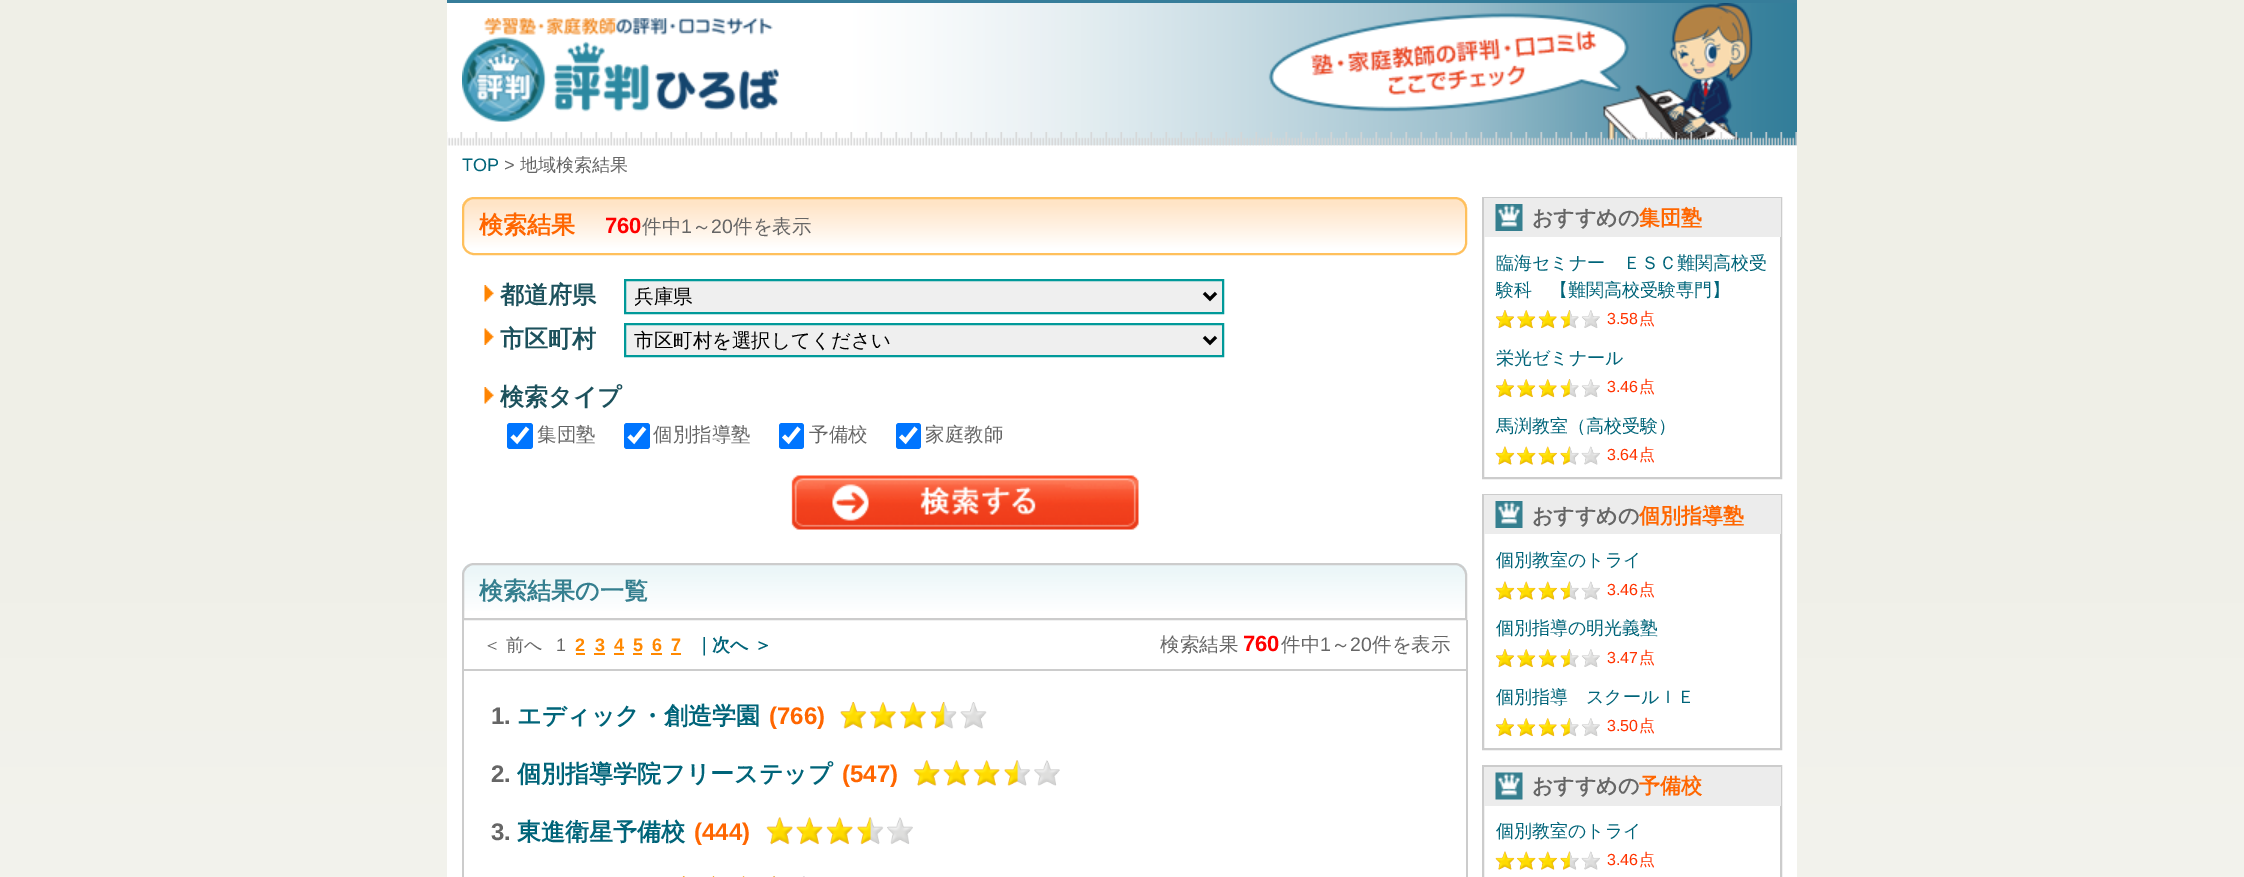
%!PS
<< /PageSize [2244 877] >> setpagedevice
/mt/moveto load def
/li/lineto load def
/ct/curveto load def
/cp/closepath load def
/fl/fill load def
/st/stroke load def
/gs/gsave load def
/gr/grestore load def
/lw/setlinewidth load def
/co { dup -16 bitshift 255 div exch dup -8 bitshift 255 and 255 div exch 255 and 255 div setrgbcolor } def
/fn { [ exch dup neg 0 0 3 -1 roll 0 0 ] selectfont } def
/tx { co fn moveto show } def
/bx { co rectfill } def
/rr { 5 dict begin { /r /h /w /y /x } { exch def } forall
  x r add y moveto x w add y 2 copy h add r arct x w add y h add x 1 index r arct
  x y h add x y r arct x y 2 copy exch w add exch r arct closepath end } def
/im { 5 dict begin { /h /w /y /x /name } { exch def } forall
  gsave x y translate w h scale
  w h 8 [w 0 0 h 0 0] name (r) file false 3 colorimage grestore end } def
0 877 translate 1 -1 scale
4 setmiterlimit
0 0 2244 877 16#FFFFFF bx
gs 0 0 mt 2244 0 li 2244 877 li 0 877 li cp clip newpath
<< /ShadingType 2 /ColorSpace /DeviceRGB /Coords [1122 0 1122 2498] /Extend [true true] /Function << /FunctionType 3 /Domain [0 1] /Functions [<< /FunctionType 2 /Domain [0 1] /C0 [.937 .937 .906] /C1 [.937 .937 .906] /N 1 >> << /FunctionType 2 /Domain [0 1] /C0 [.937 .937 .906] /C1 [1 1 1] /N 1 >> << /FunctionType 2 /Domain [0 1] /C0 [1 1 1] /C1 [1 1 1] /N 1 >>] /Bounds [.2 .8] /Encode [0 1 0 1 0 1] >> >> shfill gr
447 3 1350 874 16#FFFFFF bx
447 0 1350 3 16#367D9A bx
(media/1.raw) 447 3 1350 143 im
(media/2.raw) 462 18 317 104 im
gs
462 197 1005 58 12 rr clip newpath
gs 462 198 mt 1467 198 li 1467 254 li 462 254 li cp clip newpath
<< /ShadingType 2 /ColorSpace /DeviceRGB /Coords [965 198 965 254] /Extend [true true] /Function << /FunctionType 3 /Domain [0 1] /Functions [<< /FunctionType 2 /Domain [0 1] /C0 [1 .894 .776] /C1 [1 .894 .776] /N 1 >> << /FunctionType 2 /Domain [0 1] /C0 [1 .894 .776] /C1 [1 1 1] /N 1 >> << /FunctionType 2 /Domain [0 1] /C0 [1 1 1] /C1 [1 1 1] /N 1 >>] /Bounds [.1 .9] /Encode [0 1 0 1 0 1] >> >> shfill gr
gr
16#FFC05C co
2 lw
463 198 1003 56 11 rr st
(media/3.raw) 484 285 10 17 im
16#EFEFEF co
625 280 mt 1223 280 li 1223 313 li 625 313 li cp gs fl gr
16#009999 co
st
16#000000 co
3 lw
1204 293 mt 1210 299 li 1216 293 li st
(media/4.raw) 484 328 10 17 im
16#EFEFEF co
625 324 mt 1223 324 li 1223 356 li 625 356 li cp gs fl gr
16#009999 co
2 lw
st
16#000000 co
3 lw
1204 337 mt 1210 343 li 1216 337 li st
(media/3.raw) 484 387 10 17 im
16#0075FF co
507 423 26 26 3 rr fl
16#FFFFFF co
4.1 lw
512 436 mt 517 441 li 527.5 428 li st
16#0075FF co
624 423 26 26 3 rr fl
16#FFFFFF co
629 436 mt 634 441 li 644.5 428 li st
16#0075FF co
779 423 25 26 3 rr fl
16#FFFFFF co
783.5 436 mt 788.5 441 li 799 428 li st
16#0075FF co
896 423 25 26 3 rr fl
16#FFFFFF co
900.5 436 mt 905.5 441 li 916 428 li st
(media/5.raw) 791 475 348 55 im
gs
474 563 mt 1455 563 li 1461.5 563 1467 568.5 1467 575 ct 1467 620 li 462 620 li 462 575 li 462 568.5 467.5 563 474 563 ct cp clip newpath
gs 462 564 mt 1467 564 li 1467 618 li 462 618 li cp clip newpath
<< /ShadingType 2 /ColorSpace /DeviceRGB /Coords [965 564 965 618] /Extend [true true] /Function << /FunctionType 3 /Domain [0 1] /Functions [<< /FunctionType 2 /Domain [0 1] /C0 [.922 .965 .973] /C1 [.922 .965 .973] /N 1 >> << /FunctionType 2 /Domain [0 1] /C0 [.922 .965 .973] /C1 [1 1 1] /N 1 >> << /FunctionType 2 /Domain [0 1] /C0 [1 1 1] /C1 [1 1 1] /N 1 >>] /Bounds [.1 .9] /Encode [0 1 0 1 0 1] >> >> shfill gr
gr
16#CCCCCC co
2 lw
474 564 mt 1455 564 li 1461 564 1466 569 1466 575 ct 1466 619 li 463 619 li 463 575 li 463 569 468 564 474 564 ct cp st
1466 620 2 257 16#CCCCCC bx
462 620 2 257 16#CCCCCC bx
464 669 1002 2 16#CCCCCC bx
576 653 9 2 16#FF8800 bx
594 653 11 2 16#FF8800 bx
614 653 10 2 16#FF8800 bx
633 653 9 2 16#FF8800 bx
651 653 11 2 16#FF8800 bx
671 653 10 2 16#FF8800 bx
(media/6.raw) 840 702 147 27 im
(media/7.raw) 913 760 147 26 im
(media/8.raw) 766 817 147 28 im
(media/9.raw) 682 876 123 1 im
16#CCCCCC co
1483 198 298 280 rectstroke
1484 198 297 39 16#ECECEC bx
(media/10.raw) 1495 204 28 27 im
(media/11.raw) 1495 310 105 19 im
(media/11.raw) 1495 379 105 19 im
(media/12.raw) 1495 446 105 19 im
16#CCCCCC co
1483 495 298 254 rectstroke
1484 495 297 39 16#ECECEC bx
(media/10.raw) 1495 501 28 27 im
(media/12.raw) 1495 581 105 19 im
(media/11.raw) 1495 649 105 19 im
(media/11.raw) 1495 718 105 19 im
16#CCCCCC co
1483 766 298 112 rectstroke
1484 767 297 39 16#ECECEC bx
(media/13.raw) 1495 772 28 28 im
(media/12.raw) 1495 851 105 19 im
(TOP) 462 171 /LiberationSans-Regular 18 16#006479 tx
(>) 504 171 /LiberationSans-Regular 18 16#666666 tx
(地域検索結果) 520 171 /WenQuanYiZenHei-Medium 18 16#666666 tx
(検索結果) 479 233 /WenQuanYiZenHei-Bold 24 16#FF6600 tx
(760) 605 233 /LiberationSans-Bold 22 16#FF0000 tx
(件中) 642 233 /WenQuanYiZenHei-Medium 19.5 16#666666 tx
(1) 681 233 /LiberationSans-Regular 19.5 16#666666 tx
(～) 692 233 /WenQuanYiZenHei-Medium 19.5 16#666666 tx
(20) 711 233 /LiberationSans-Regular 19.5 16#666666 tx
(件を表示) 733 233 /WenQuanYiZenHei-Medium 19.5 16#666666 tx
(都道府県) 500 303 /WenQuanYiZenHei-Bold 24 16#1C515C tx
gs
635 284 561 25 rectclip
(兵庫県) 634 303 /WenQuanYiZenHei-Medium 19.5 16#000000 tx
gr
(市区町村) 500 347 /WenQuanYiZenHei-Bold 24 16#1C515C tx
(市区町村を選択してください) 634 347 /WenQuanYiZenHei-Medium 19.5 16#000000 tx
(検索タイプ) 500 405 /WenQuanYiZenHei-Bold 24 16#1C515C tx
(集団塾) 537 441 /WenQuanYiZenHei-Medium 19.5 16#666666 tx
(個別指導塾) 653 441 /WenQuanYiZenHei-Medium 19.5 16#666666 tx
(予備校) 809 441 /WenQuanYiZenHei-Medium 19.5 16#666666 tx
(家庭教師) 925 441 /WenQuanYiZenHei-Medium 19.5 16#666666 tx
(検索結果の一覧) 479 599 /WenQuanYiZenHei-Bold 24 16#357F8F tx
(＜ 前へ) 483 651 /WenQuanYiZenHei-Medium 18 16#666666 tx
(1) 556 651 /LiberationSans-Regular 18 16#666666 tx
(2) 575 651 /LiberationSans-Bold 18 16#FF8800 tx
(3) 595 651 /LiberationSans-Bold 18 16#FF8800 tx
(4) 614 651 /LiberationSans-Bold 18 16#FF8800 tx
(5) 633 651 /LiberationSans-Bold 18 16#FF8800 tx
(6) 652 651 /LiberationSans-Bold 18 16#FF8800 tx
(7) 671 651 /LiberationSans-Bold 18 16#FF8800 tx
(｜) 695 651 /WenQuanYiZenHei-Bold 18 16#006479 tx
(次へ ＞) 712 651 /WenQuanYiZenHei-Bold 18 16#006479 tx
(検索結果) 1160 651 /WenQuanYiZenHei-Medium 19.5 16#666666 tx
(760) 1243 651 /LiberationSans-Bold 22 16#FF0000 tx
(件中) 1281 651 /WenQuanYiZenHei-Medium 19.5 16#666666 tx
(1) 1320 651 /LiberationSans-Regular 19.5 16#666666 tx
(～) 1331 651 /WenQuanYiZenHei-Medium 19.5 16#666666 tx
(20) 1350 651 /LiberationSans-Regular 19.5 16#666666 tx
(件を表示) 1372 651 /WenQuanYiZenHei-Medium 19.5 16#666666 tx
(1.) 491 724 /LiberationSans-Bold 24 16#666666 tx
(エディック・創造学園) 517 724 /WenQuanYiZenHei-Bold 24 16#006479 tx
(\(766\)) 769 724 /LiberationSans-Bold 24 16#FF6600 tx
(2.) 491 782 /LiberationSans-Bold 24 16#666666 tx
(個別指導学院フリーステップ) 517 782 /WenQuanYiZenHei-Bold 24 16#006479 tx
(\(547\)) 842 782 /LiberationSans-Bold 24 16#FF6600 tx
(3.) 491 840 /LiberationSans-Bold 24 16#666666 tx
(東進衛星予備校) 517 840 /WenQuanYiZenHei-Bold 24 16#006479 tx
(\(444\)) 694 840 /LiberationSans-Bold 24 16#FF6600 tx
(おすすめの) 1532 225 /WenQuanYiZenHei-Bold 21 16#666666 tx
(集団塾) 1639 225 /WenQuanYiZenHei-Bold 21 16#FF6600 tx
(臨海セミナー　ＥＳＣ難関高校受) 1496 269 /WenQuanYiZenHei-Medium 18 16#006479 tx
(験科　【難関高校受験専門】) 1496 296 /WenQuanYiZenHei-Medium 18 16#006479 tx
(3.58) 1607 324 /LiberationSans-Regular 16 16#FF3300 tx
(点) 1639 324 /WenQuanYiZenHei-Medium 16 16#FF3300 tx
(栄光ゼミナール) 1496 364 /WenQuanYiZenHei-Medium 18 16#006479 tx
(3.46) 1607 392 /LiberationSans-Regular 16 16#FF3300 tx
(点) 1639 392 /WenQuanYiZenHei-Medium 16 16#FF3300 tx
(馬渕教室（高校受験）) 1496 432 /WenQuanYiZenHei-Medium 18 16#006479 tx
(3.64) 1607 460 /LiberationSans-Regular 16 16#FF3300 tx
(点) 1639 460 /WenQuanYiZenHei-Medium 16 16#FF3300 tx
(おすすめの) 1532 523 /WenQuanYiZenHei-Bold 21 16#666666 tx
(個別指導塾) 1639 523 /WenQuanYiZenHei-Bold 21 16#FF6600 tx
(個別教室のトライ) 1496 566 /WenQuanYiZenHei-Medium 18 16#006479 tx
(3.46) 1607 595 /LiberationSans-Regular 16 16#FF3300 tx
(点) 1639 595 /WenQuanYiZenHei-Medium 16 16#FF3300 tx
(個別指導の明光義塾) 1496 634 /WenQuanYiZenHei-Medium 18 16#006479 tx
(3.47) 1607 663 /LiberationSans-Regular 16 16#FF3300 tx
(点) 1639 663 /WenQuanYiZenHei-Medium 16 16#FF3300 tx
(個別指導　スクールＩＥ) 1496 703 /WenQuanYiZenHei-Medium 18 16#006479 tx
(3.50) 1607 731 /LiberationSans-Regular 16 16#FF3300 tx
(点) 1639 731 /WenQuanYiZenHei-Medium 16 16#FF3300 tx
(おすすめの) 1532 793 /WenQuanYiZenHei-Bold 21 16#666666 tx
(予備校) 1639 793 /WenQuanYiZenHei-Bold 21 16#FF6600 tx
(個別教室のトライ) 1496 837 /WenQuanYiZenHei-Medium 18 16#006479 tx
(3.46) 1607 865 /LiberationSans-Regular 16 16#FF3300 tx
(点) 1639 865 /WenQuanYiZenHei-Medium 16 16#FF3300 tx
showpage
